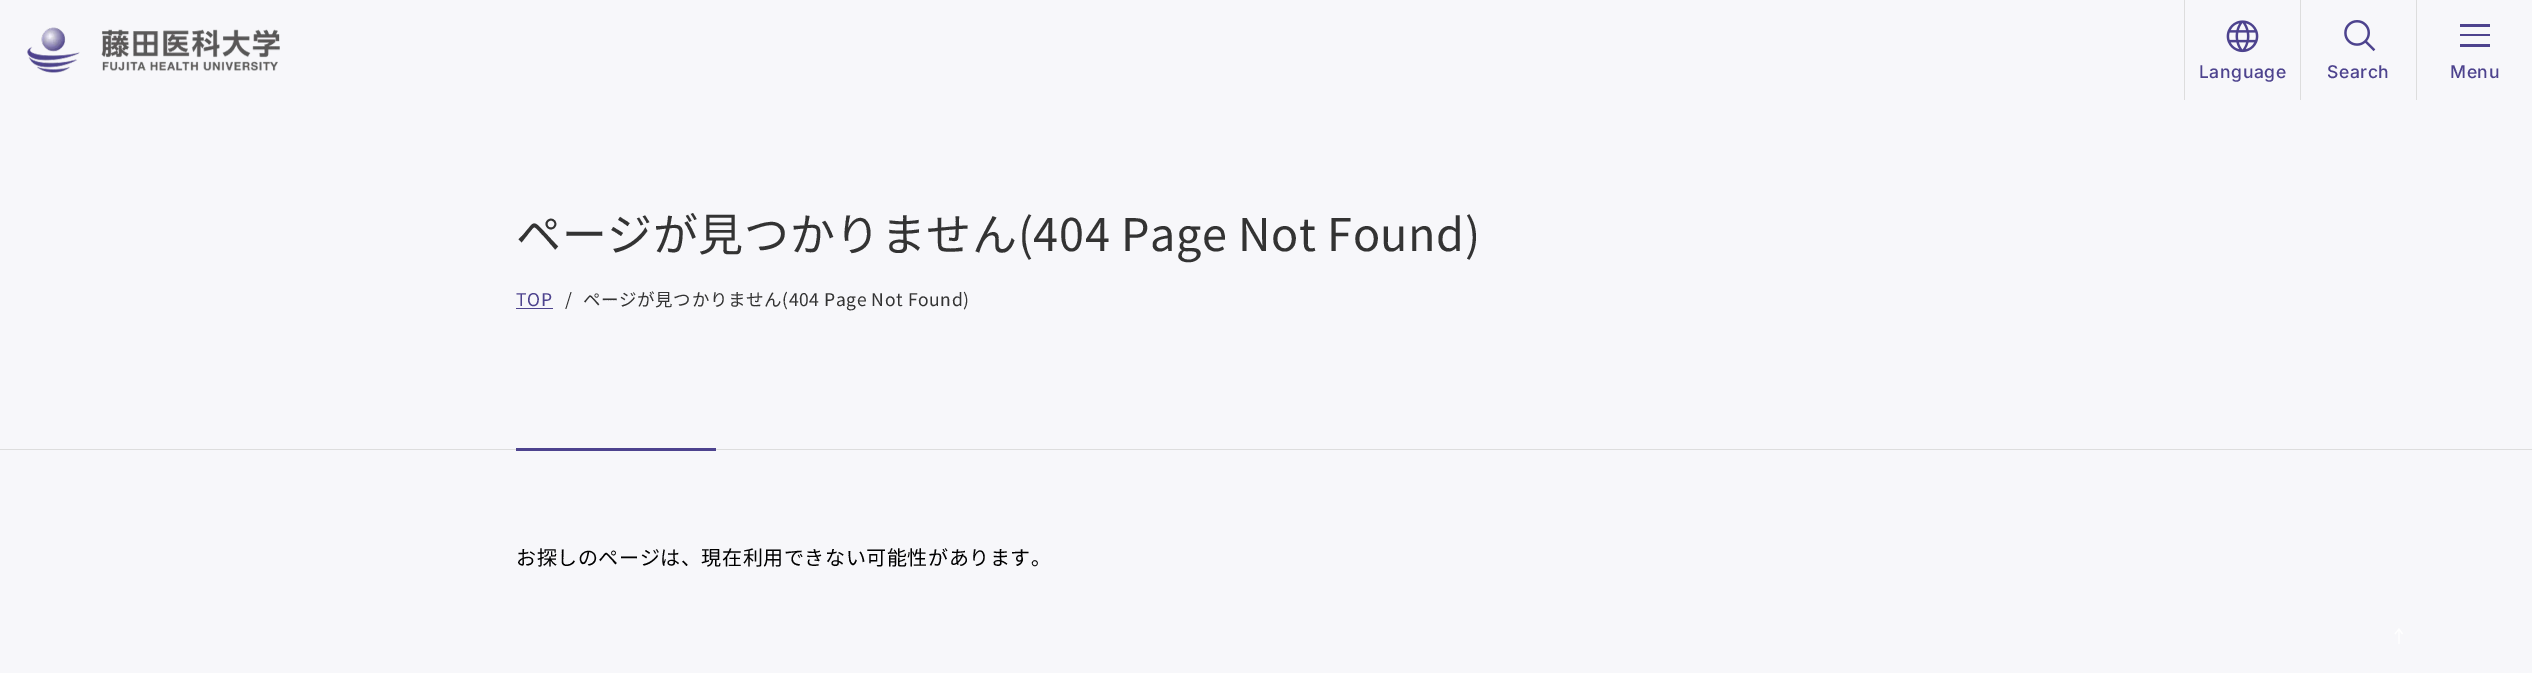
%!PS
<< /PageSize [2532 673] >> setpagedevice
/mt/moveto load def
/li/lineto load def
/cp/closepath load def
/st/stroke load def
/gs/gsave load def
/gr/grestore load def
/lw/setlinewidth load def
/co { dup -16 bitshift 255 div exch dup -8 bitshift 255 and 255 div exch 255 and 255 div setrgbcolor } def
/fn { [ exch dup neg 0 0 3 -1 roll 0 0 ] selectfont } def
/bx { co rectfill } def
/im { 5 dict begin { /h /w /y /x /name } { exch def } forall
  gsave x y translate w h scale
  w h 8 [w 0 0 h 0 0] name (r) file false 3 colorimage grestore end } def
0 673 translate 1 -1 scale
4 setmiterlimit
0 0 2532 673 16#F7F7FA bx
(media/1.raw) 27 27 253 46 im
2184 0 1 100 16#DDDDDD bx
(media/2.raw) 2226 20 33 33 im
2300 0 1 100 16#DDDDDD bx
(media/3.raw) 2344 20 32 32 im
2416 0 1 100 16#DDDDDD bx
gs 2460 34 mt 2490 34 li 2490 36 li 2460 36 li cp clip newpath
<< /ShadingType 2 /ColorSpace /DeviceRGB /Coords [2475 24 2475 46] /Extend [true true] /Function << /FunctionType 3 /Domain [0 1] /Functions [<< /FunctionType 2 /Domain [0 1] /C0 [.969 .969 .98] /C1 [.969 .969 .98] /N 1 >> << /FunctionType 2 /Domain [0 1] /C0 [.302 .263 .557] /C1 [.302 .263 .557] /N 1 >> << /FunctionType 2 /Domain [0 1] /C0 [.969 .969 .98] /C1 [.969 .969 .98] /N 1 >>] /Bounds [.44 .56] /Encode [0 1 0 1 0 1] >> >> shfill gr
2460 24 30 3 16#4D438E bx
2460 44 30 3 16#4D438E bx
0 449 2532 1 16#DDDDDD bx
516 308 37 1 16#4D438E bx
516 448 200 3 16#4D438E bx
16#FFFFFF co
1.2 lw
2402.5 634 mt 2399 629 li 2395 634 li 2399 644 mt 2399 629 li st
/Inter-Medium 17.5 fn
16#4D438E co
2199 78 mt .6 0 (Language) ashow
2327 78 mt .6 0 (Search) ashow
2450 78 mt .6 0 (Menu) ashow
/NotoSansJP-Regular 45 fn
16#333333 co
516 251 mt .6 0 (ページが見つかりません\(404 Page Not Found\)) ashow
/NotoSansJP-Regular 17.5 fn
16#4D438E co
516 306 mt .6 0 (TOP) ashow
16#333333 co
565 306 mt .6 0 (/) ashow
583 306 mt .6 0 (ページが見つかりません\(404 Page Not Found\)) ashow
/NotoSansJP-Regular 20 fn
16#000000 co
516 565 mt .6 0 (お探しのページは、現在利用できない可能性があります。) ashow
showpage
